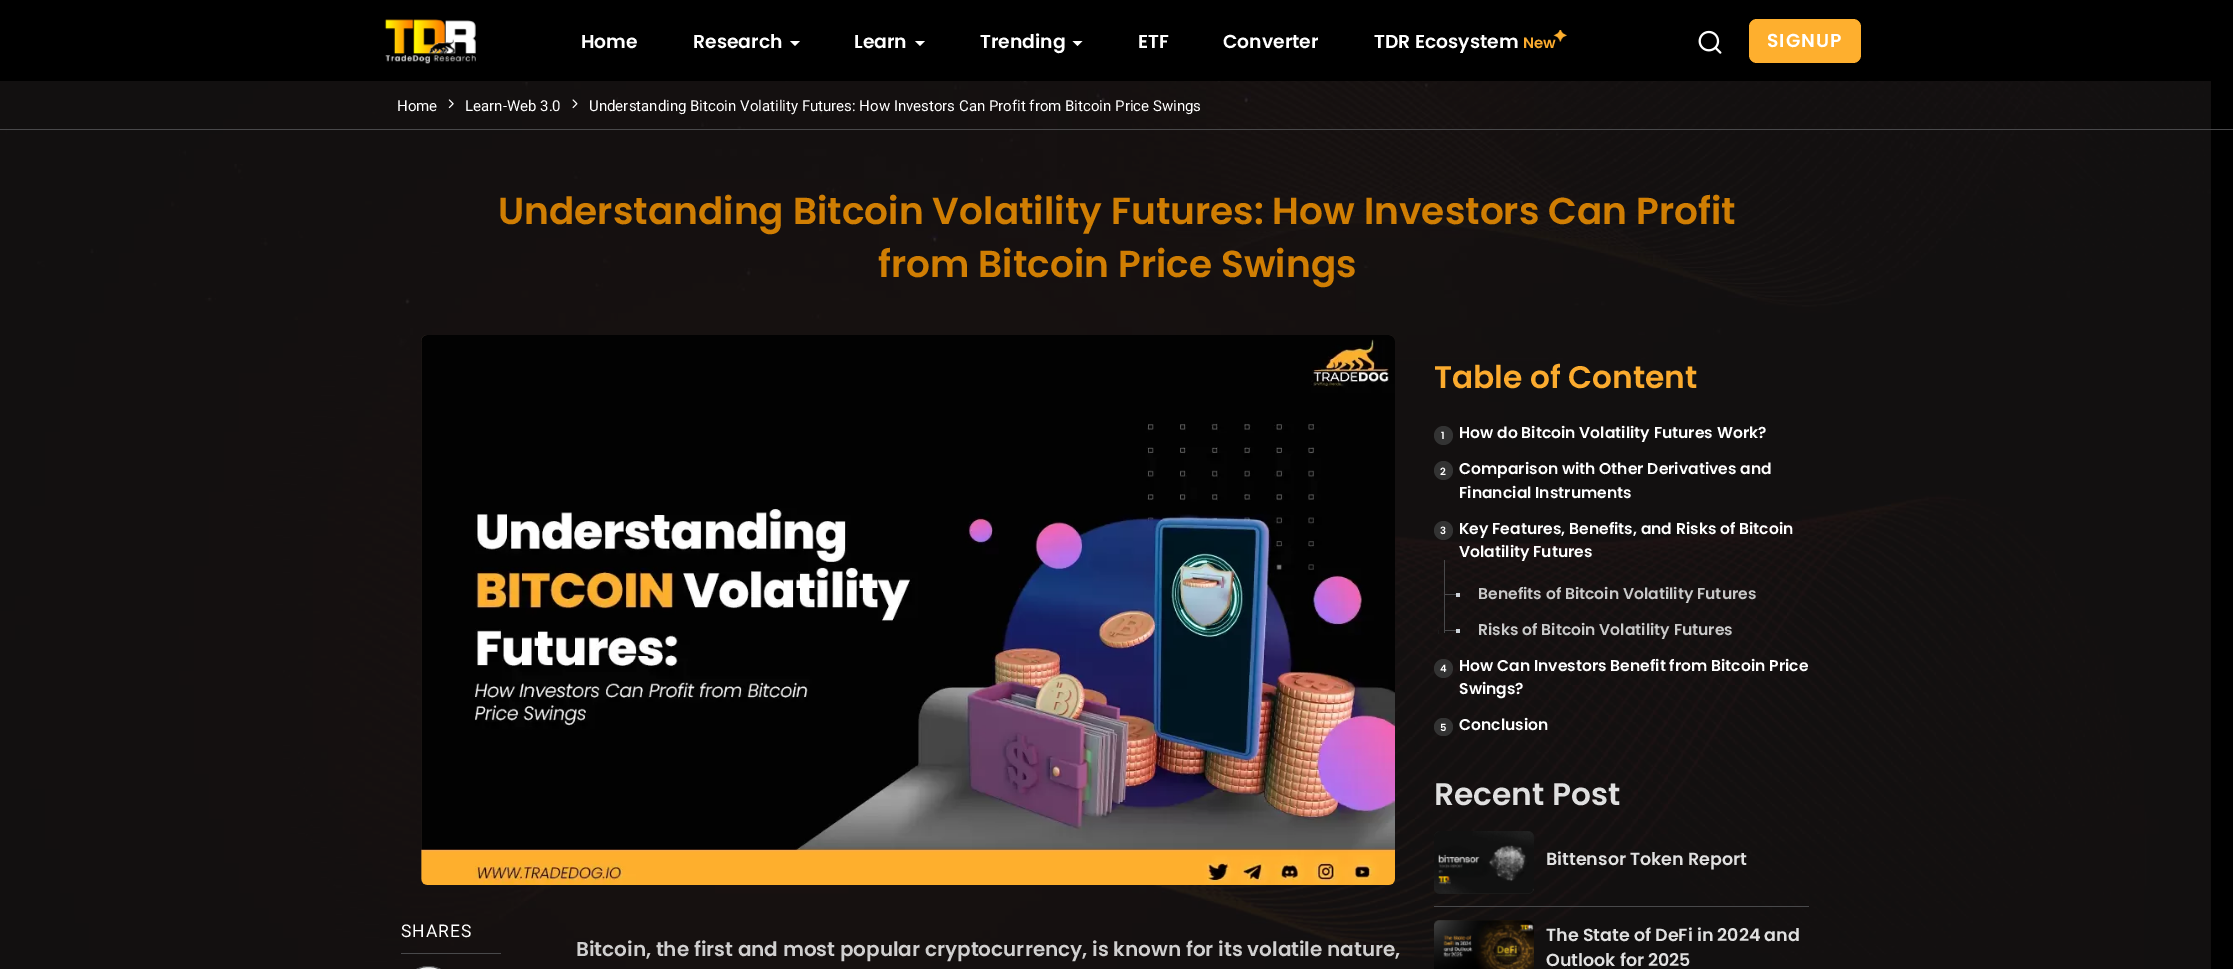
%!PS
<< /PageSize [2233 969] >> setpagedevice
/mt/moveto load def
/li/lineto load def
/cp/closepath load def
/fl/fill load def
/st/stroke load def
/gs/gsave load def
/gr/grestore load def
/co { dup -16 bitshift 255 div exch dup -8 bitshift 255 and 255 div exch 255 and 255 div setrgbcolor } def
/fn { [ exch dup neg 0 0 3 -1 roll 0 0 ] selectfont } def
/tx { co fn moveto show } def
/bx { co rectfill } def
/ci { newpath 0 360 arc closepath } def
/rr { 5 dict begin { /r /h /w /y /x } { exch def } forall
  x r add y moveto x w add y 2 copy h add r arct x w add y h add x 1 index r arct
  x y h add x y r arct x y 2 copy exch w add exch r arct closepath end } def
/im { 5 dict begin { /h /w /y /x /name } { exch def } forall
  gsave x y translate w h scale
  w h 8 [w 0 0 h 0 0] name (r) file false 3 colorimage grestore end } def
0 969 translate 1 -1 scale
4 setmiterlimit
0 0 2233 969 16#000000 bx
(media/1.raw) 0 81 2211 888 im
(media/2.raw) 384 19 92 45 im
16#FFFFFF co
790 41 mt 800 41 li 795 46 li cp fl
915 41 mt 925 41 li 920 46 li cp fl
1072.5 41 mt 1082.5 41 li 1077.5 46 li cp fl
(media/3.raw) 1553 30 14 12 im
(media/4.raw) 1698 30 24 24 im
16#FEAF2E co
1749 19 112 44 8 rr fl
(media/5.raw) 448 99 6 10 im
(media/6.raw) 572 99 6 10 im
0 129 2233 1 16#49494B bx
16#342B26 co
421 335 974 550 6 rr fl
(media/7.raw) 421 335 974 550 im
401 953 100 1 16#49494B bx
16#ECECEC co
401.5 966.5 54 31 27 rr gs fl gr
16#49494B co
st
16#333333 co
1443.5 435.5 9.5 ci fl
1443.5 470.5 9.5 ci fl
1443.5 530.5 9.5 ci fl
1444 560 1 73 16#49494B bx
1444 594 12 1 16#49494B bx
1456 593 4 4 16#CED4DA bx
1444 630 12 1 16#49494B bx
1456 629 4 4 16#CED4DA bx
1438 630 1 4 16#1C1C1C bx
16#333333 co
1443.5 668.5 9.5 ci fl
1434 718 19 18 9 rr fl
16#212120 co
1434 831 100 63 6 rr fl
(media/8.raw) 1434 831 100 63 im
1434 906 375 1 16#49494B bx
16#261E12 co
1434 920 100 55 6 rr fl
(media/9.raw) 1434 920 100 49 im
(Home) 581 48 /Poppins-SemiBold 18.75 16#FFFFFF tx
(Research) 693 48 /Poppins-SemiBold 18.75 16#FFFFFF tx
(Learn) 854 48 /Poppins-SemiBold 18.75 16#FFFFFF tx
(Trending) 980 48 /Poppins-SemiBold 18.75 16#FFFFFF tx
(ETF) 1138 48 /Poppins-SemiBold 18.75 16#FFFFFF tx
(Converter) 1223 48 /Poppins-SemiBold 18.75 16#FFFFFF tx
(TDR Ecosystem) 1374 48 /Poppins-SemiBold 18.75 16#FFFFFF tx
(New) 1523 48 /Poppins-SemiBold 15 16#FBAB2E tx
/Poppins-SemiBold 18.75 fn
16#FFFFFF co
1767 47 mt 1 0 (SIGNUP) ashow
(Home) 397 111 /Roboto-Regular 15 16#FFFFFF tx
(Learn-Web 3.0) 465 111 /Roboto-Regular 15 16#FFFFFF tx
(Understanding Bitcoin Volatility Futures: How Investors Can Profit from Bitcoin Price Swings) 589 111 /Roboto-Regular 15 16#FFFFFF tx
(Understanding Bitcoin Volatility Futures: How Investors Can Profit) 498 224 /Poppins-SemiBold 37.5 16#D07E03 tx
(from Bitcoin Price Swings) 878 277 /Poppins-SemiBold 37.5 16#D07E03 tx
/Roboto-Regular 17.5 fn
16#FFFFFF co
401 937 mt 1 0 (SHARES) ashow
(Bitcoin, the first and most popular cryptocurrency, is known for its volatile nature,) 576 956 /Poppins-SemiBold 20 16#D0CFCF tx
(Table of Content) 1434 388 /Poppins-SemiBold 31.25 16#FBAB2E tx
(1) 1441 439 /Poppins-SemiBold 10 16#FFFFFF tx
(How do Bitcoin Volatility Futures Work?) 1459 438 /Poppins-SemiBold 15.6 16#FFFFFF tx
(2) 1440 475 /Poppins-SemiBold 10 16#FFFFFF tx
(Comparison with Other Derivatives and) 1459 474 /Poppins-SemiBold 15.6 16#FFFFFF tx
(Financial Instruments) 1459 498 /Poppins-SemiBold 15.6 16#FFFFFF tx
(3) 1440 534 /Poppins-SemiBold 10 16#FFFFFF tx
(Key Features, Benefits, and Risks of Bitcoin) 1459 534 /Poppins-SemiBold 15.6 16#FFFFFF tx
(Volatility Futures) 1459 557 /Poppins-SemiBold 15.6 16#FFFFFF tx
(Benefits of Bitcoin Volatility Futures) 1478 599 /Poppins-SemiBold 15.6 16#C9C9C9 tx
(Risks of Bitcoin Volatility Futures) 1478 635 /Poppins-SemiBold 15.6 16#C9C9C9 tx
(4) 1440 672 /Poppins-SemiBold 10 16#FFFFFF tx
(How Can Investors Benefit from Bitcoin Price) 1459 671 /Poppins-SemiBold 15.6 16#FFFFFF tx
(Swings?) 1459 694 /Poppins-SemiBold 15.6 16#FFFFFF tx
(5) 1440 731 /Poppins-SemiBold 10 16#FFFFFF tx
(Conclusion) 1459 730 /Poppins-SemiBold 15.6 16#FFFFFF tx
(Recent Post) 1434 805 /Poppins-SemiBold 31.25 16#E0E0E0 tx
(Bittensor Token Report) 1546 865 /Poppins-SemiBold 17.5 16#E0E0E0 tx
(The State of DeFi in 2024 and) 1546 941 /Poppins-SemiBold 17.5 16#E0E0E0 tx
(Outlook for 2025) 1546 966 /Poppins-SemiBold 17.5 16#E0E0E0 tx
showpage
